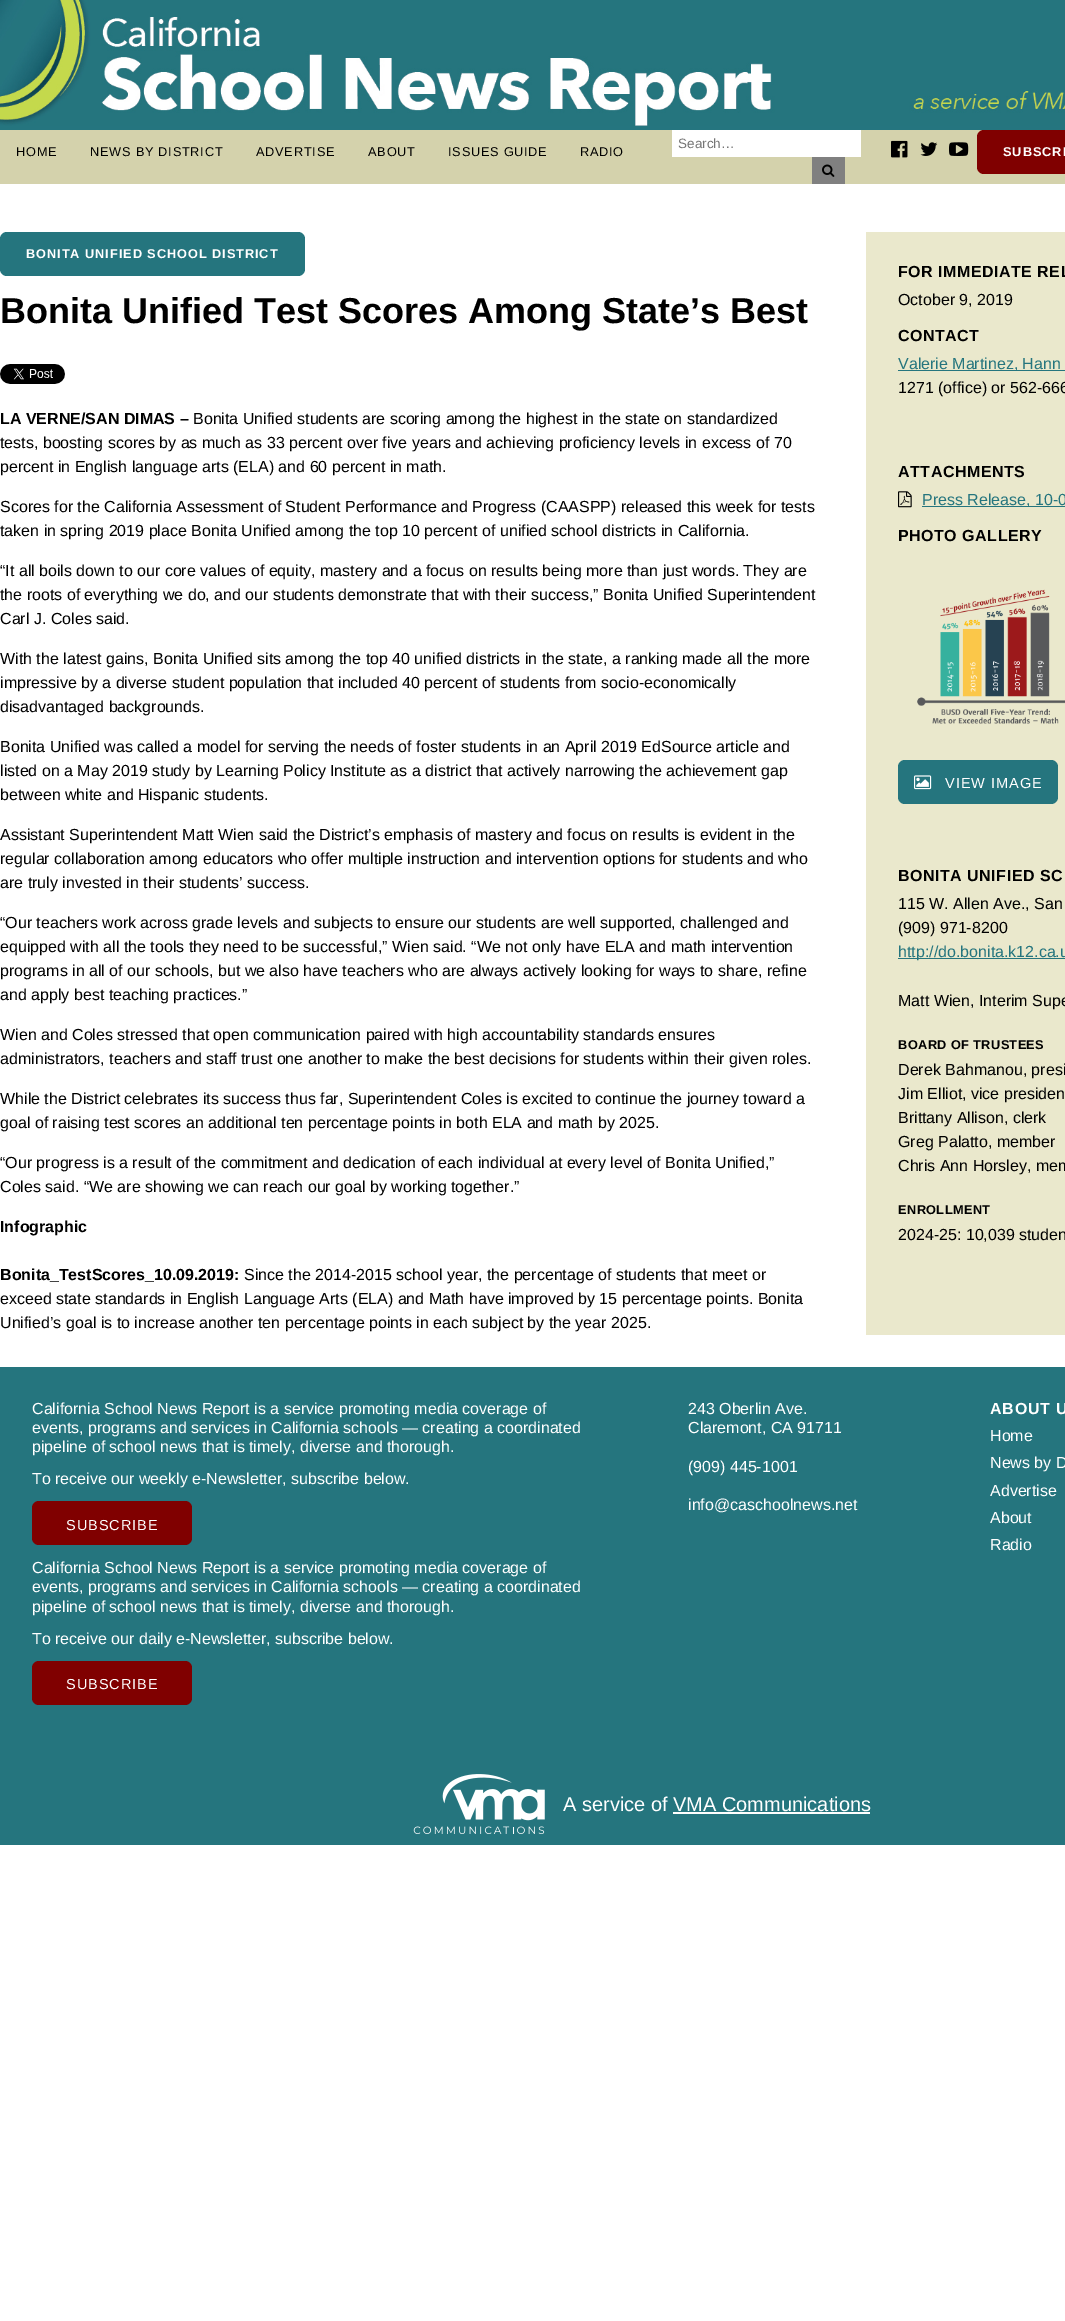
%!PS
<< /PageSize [1065 2321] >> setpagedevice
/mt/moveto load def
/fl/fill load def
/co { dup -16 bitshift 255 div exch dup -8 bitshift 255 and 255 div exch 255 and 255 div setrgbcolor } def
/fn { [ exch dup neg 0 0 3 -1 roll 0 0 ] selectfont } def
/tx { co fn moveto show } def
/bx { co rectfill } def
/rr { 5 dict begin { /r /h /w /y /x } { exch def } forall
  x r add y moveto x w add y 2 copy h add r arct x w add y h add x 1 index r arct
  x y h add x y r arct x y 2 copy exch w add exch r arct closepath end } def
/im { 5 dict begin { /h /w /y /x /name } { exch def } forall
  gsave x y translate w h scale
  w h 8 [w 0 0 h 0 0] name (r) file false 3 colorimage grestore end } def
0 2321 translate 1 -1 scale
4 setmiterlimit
0 0 1065 2321 16#FFFFFF bx
0 126 1065 4 16#25757F bx
(media/1.raw) 0 0 1065 126 im
0 130 1065 54 16#D4D2AC bx
672 130 189 27 16#FFFFFF bx
812 157 33 27 16#808080 bx
(media/2.raw) 822 164 13 13 im
(media/3.raw) 891 140 17 18 im
(media/4.raw) 920 142 18 14 im
(media/5.raw) 949 142 20 14 im
16#800000 co
977 130 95 44 7 rr fl
16#25757E co
0 232 305 44 7 rr fl
(media/6.raw) 0 364 65 20 im
866 232 199 1103 16#EAE8CC bx
898 370 167 1 16#25757E bx
(media/7.raw) 898 491 14 17 im
922 506 143 1 16#25757E bx
(media/8.raw) 917 589 148 135 im
898 760 160 44 7 rr fl
(media/9.raw) 914 775 18 15 im
898 958 167 1 16#25757E bx
0 1367 1065 478 16#25757E bx
16#800000 co
32 1501 160 44 7 rr fl
32 1661 160 44 7 rr fl
(media/10.raw) 413 1774 132 60 im
673 1812 197 2 16#FFFFFF bx
(Search…) 678 148 /LiberationSans-Regular 13.5 16#757575 tx
/LiberationSans-Regular 12.75 fn
16#000000 co
16 156 mt .75 0 (HOME) ashow
90 156 mt .75 0 (NEWS BY DISTRICT) ashow
256 156 mt .75 0 (ADVERTISE) ashow
368 156 mt .75 0 (ABOUT) ashow
448 156 mt .75 0 (ISSUES GUIDE) ashow
580 156 mt .75 0 (RADIO) ashow
/LiberationSans-Bold 12.75 fn
16#FFFFFF co
1003 156 mt .95 0 (SUBSCRI) ashow
26 258 mt .95 0 (BONITA UNIFIED SCHOOL DISTRICT) ashow
(Bonita Unified Test Scores Among State’s Best) 0 323 /LiberationSans-Bold 36 16#000000 tx
(LA VERNE/SAN DIMAS –) 0 424 /LiberationSans-Bold 16 16#000000 tx
(Bonita Unified students are scoring among the highest in the state on standardized) 193 424 /LiberationSans-Regular 16 16#000000 tx
(tests, boosting scores by as much as 33 percent over five years and achieving proficiency levels in excess of 70) 0 448 /LiberationSans-Regular 16 16#000000 tx
(percent in English language arts \(ELA\) and 60 percent in math.) 0 472 /LiberationSans-Regular 16 16#000000 tx
(Scores for the California Assessment of Student Performance and Progress \(CAASPP\) released this week for tests) 0 512 /LiberationSans-Regular 16 16#000000 tx
(taken in spring 2019 place Bonita Unified among the top 10 percent of unified school districts in California.) 0 536 /LiberationSans-Regular 16 16#000000 tx
(“It all boils down to our core values of equity, mastery and a focus on results being more than just words. They are) 0 576 /LiberationSans-Regular 16 16#000000 tx
(the roots of everything we do, and our students demonstrate that with their success,” Bonita Unified Superintendent) 0 600 /LiberationSans-Regular 16 16#000000 tx
(Carl J. Coles said.) 0 624 /LiberationSans-Regular 16 16#000000 tx
(With the latest gains, Bonita Unified sits among the top 40 unified districts in the state, a ranking made all the more) 0 664 /LiberationSans-Regular 16 16#000000 tx
(impressive by a diverse student population that included 40 percent of students from socio-economically) 0 688 /LiberationSans-Regular 16 16#000000 tx
(disadvantaged backgrounds.) 0 712 /LiberationSans-Regular 16 16#000000 tx
(Bonita Unified was called a model for serving the needs of foster students in an April 2019 EdSource article and) 0 752 /LiberationSans-Regular 16 16#000000 tx
(listed on a May 2019 study by Learning Policy Institute as a district that actively narrowing the achievement gap) 0 776 /LiberationSans-Regular 16 16#000000 tx
(between white and Hispanic students.) 0 800 /LiberationSans-Regular 16 16#000000 tx
(Assistant Superintendent Matt Wien said the District’s emphasis of mastery and focus on results is evident in the) 0 840 /LiberationSans-Regular 16 16#000000 tx
(regular collaboration among educators who offer multiple instruction and intervention options for students and who) 0 864 /LiberationSans-Regular 16 16#000000 tx
(are truly invested in their students’ success.) 0 888 /LiberationSans-Regular 16 16#000000 tx
(“Our teachers work across grade levels and subjects to ensure our students are well supported, challenged and) 0 928 /LiberationSans-Regular 16 16#000000 tx
(equipped with all the tools they need to be successful,” Wien said. “We not only have ELA and math intervention) 0 952 /LiberationSans-Regular 16 16#000000 tx
(programs in all of our schools, but we also have teachers who are always actively looking for ways to share, refine) 0 976 /LiberationSans-Regular 16 16#000000 tx
(and apply best teaching practices.”) 0 1000 /LiberationSans-Regular 16 16#000000 tx
(Wien and Coles stressed that open communication paired with high accountability standards ensures) 0 1040 /LiberationSans-Regular 16 16#000000 tx
(administrators, teachers and staff trust one another to make the best decisions for students within their given roles.) 0 1064 /LiberationSans-Regular 16 16#000000 tx
(While the District celebrates its success thus far, Superintendent Coles is excited to continue the journey toward a) 0 1104 /LiberationSans-Regular 16 16#000000 tx
(goal of raising test scores an additional ten percentage points in both ELA and math by 2025.) 0 1128 /LiberationSans-Regular 16 16#000000 tx
(“Our progress is a result of the commitment and dedication of each individual at every level of Bonita Unified,”) 0 1168 /LiberationSans-Regular 16 16#000000 tx
(Coles said. “We are showing we can reach our goal by working together.”) 0 1192 /LiberationSans-Regular 16 16#000000 tx
(Infographic) 0 1232 /LiberationSans-Bold 16 16#000000 tx
(Bonita_TestScores_10.09.2019:) 0 1280 /LiberationSans-Bold 16 16#000000 tx
(Since the 2014-2015 school year, the percentage of students that meet or) 244 1280 /LiberationSans-Regular 16 16#000000 tx
(exceed state standards in English Language Arts \(ELA\) and Math have improved by 15 percentage points. Bonita) 0 1304 /LiberationSans-Regular 16 16#000000 tx
(Unified’s goal is to increase another ten percentage points in each subject by the year 2025.) 0 1328 /LiberationSans-Regular 16 16#000000 tx
/LiberationSans-Bold 16 fn
898 277 mt .5 0 (FOR IMMEDIATE REL) ashow
(October 9, 2019) 898 305 /LiberationSans-Regular 16 16#000000 tx
/LiberationSans-Bold 16 fn
898 341 mt .5 0 (CONTACT) ashow
(Valerie Martinez, Hann) 898 369 /LiberationSans-Regular 16 16#25757E tx
(1271 \(office\) or 562-666) 898 393 /LiberationSans-Regular 16 16#000000 tx
/LiberationSans-Bold 16 fn
898 477 mt .5 0 (ATTACHMENTS) ashow
(Press Release, 10-0) 922 505 /LiberationSans-Regular 16 16#25757E tx
/LiberationSans-Bold 16 fn
16#000000 co
898 541 mt .5 0 (PHOTO GALLERY) ashow
/LiberationSans-Regular 14.5 fn
16#FFFFFF co
945 788 mt 1 0 (VIEW IMAGE) ashow
/LiberationSans-Bold 16 fn
16#000000 co
898 881 mt .5 0 (BONITA UNIFIED SC) ashow
(115 W. Allen Ave., San) 898 909 /LiberationSans-Regular 16 16#000000 tx
(\(909\) 971-8200) 898 933 /LiberationSans-Regular 16 16#000000 tx
(http://do.bonita.k12.ca.u) 898 957 /LiberationSans-Regular 16 16#25757E tx
(Matt Wien, Interim Supe) 898 1006 /LiberationSans-Regular 16 16#000000 tx
/LiberationSans-Bold 12.75 fn
898 1049 mt .4 0 (BOARD OF TRUSTEES) ashow
(Derek Bahmanou, presi) 898 1075 /LiberationSans-Regular 16 16#000000 tx
(Jim Elliot, vice presiden) 898 1099 /LiberationSans-Regular 16 16#000000 tx
(Brittany Allison, clerk) 898 1123 /LiberationSans-Regular 16 16#000000 tx
(Greg Palatto, member) 898 1147 /LiberationSans-Regular 16 16#000000 tx
(Chris Ann Horsley, mem) 898 1171 /LiberationSans-Regular 16 16#000000 tx
/LiberationSans-Bold 12.75 fn
898 1214 mt .4 0 (ENROLLMENT) ashow
(2024-25: 10,039 studen) 898 1240 /LiberationSans-Regular 16 16#000000 tx
(California School News Report is a service promoting media coverage of) 32 1414 /LiberationSans-Regular 16 16#FFFFFF tx
(events, programs and services in California schools — creating a coordinated) 32 1433 /LiberationSans-Regular 16 16#FFFFFF tx
(pipeline of school news that is timely, diverse and thorough.) 32 1452 /LiberationSans-Regular 16 16#FFFFFF tx
(To receive our weekly e-Newsletter, subscribe below.) 32 1484 /LiberationSans-Regular 16 16#FFFFFF tx
/LiberationSans-Regular 14.5 fn
66 1530 mt 1 0 (SUBSCRIBE) ashow
(California School News Report is a service promoting media coverage of) 32 1573 /LiberationSans-Regular 16 16#FFFFFF tx
(events, programs and services in California schools — creating a coordinated) 32 1592 /LiberationSans-Regular 16 16#FFFFFF tx
(pipeline of school news that is timely, diverse and thorough.) 32 1612 /LiberationSans-Regular 16 16#FFFFFF tx
(To receive our daily e-Newsletter, subscribe below.) 32 1644 /LiberationSans-Regular 16 16#FFFFFF tx
/LiberationSans-Regular 14.5 fn
66 1689 mt 1 0 (SUBSCRIBE) ashow
(243 Oberlin Ave.) 688 1414 /LiberationSans-Regular 16 16#FFFFFF tx
(Claremont, CA 91711) 688 1433 /LiberationSans-Regular 16 16#FFFFFF tx
(\(909\) 445-1001) 688 1472 /LiberationSans-Regular 16 16#FFFFFF tx
(info@caschoolnews.net) 688 1510 /LiberationSans-Regular 16 16#FFFFFF tx
/LiberationSans-Bold 16 fn
990 1414 mt .75 0 (ABOUT U) ashow
(Home) 990 1441 /LiberationSans-Regular 16 16#FFFFFF tx
(News by D) 990 1468 /LiberationSans-Regular 16 16#FFFFFF tx
(Advertise) 990 1496 /LiberationSans-Regular 16 16#FFFFFF tx
(About) 990 1523 /LiberationSans-Regular 16 16#FFFFFF tx
(Radio) 990 1550 /LiberationSans-Regular 16 16#FFFFFF tx
(A service of VMA Communications) 563 1811 /LiberationSans-Regular 20 16#FFFFFF tx
showpage
